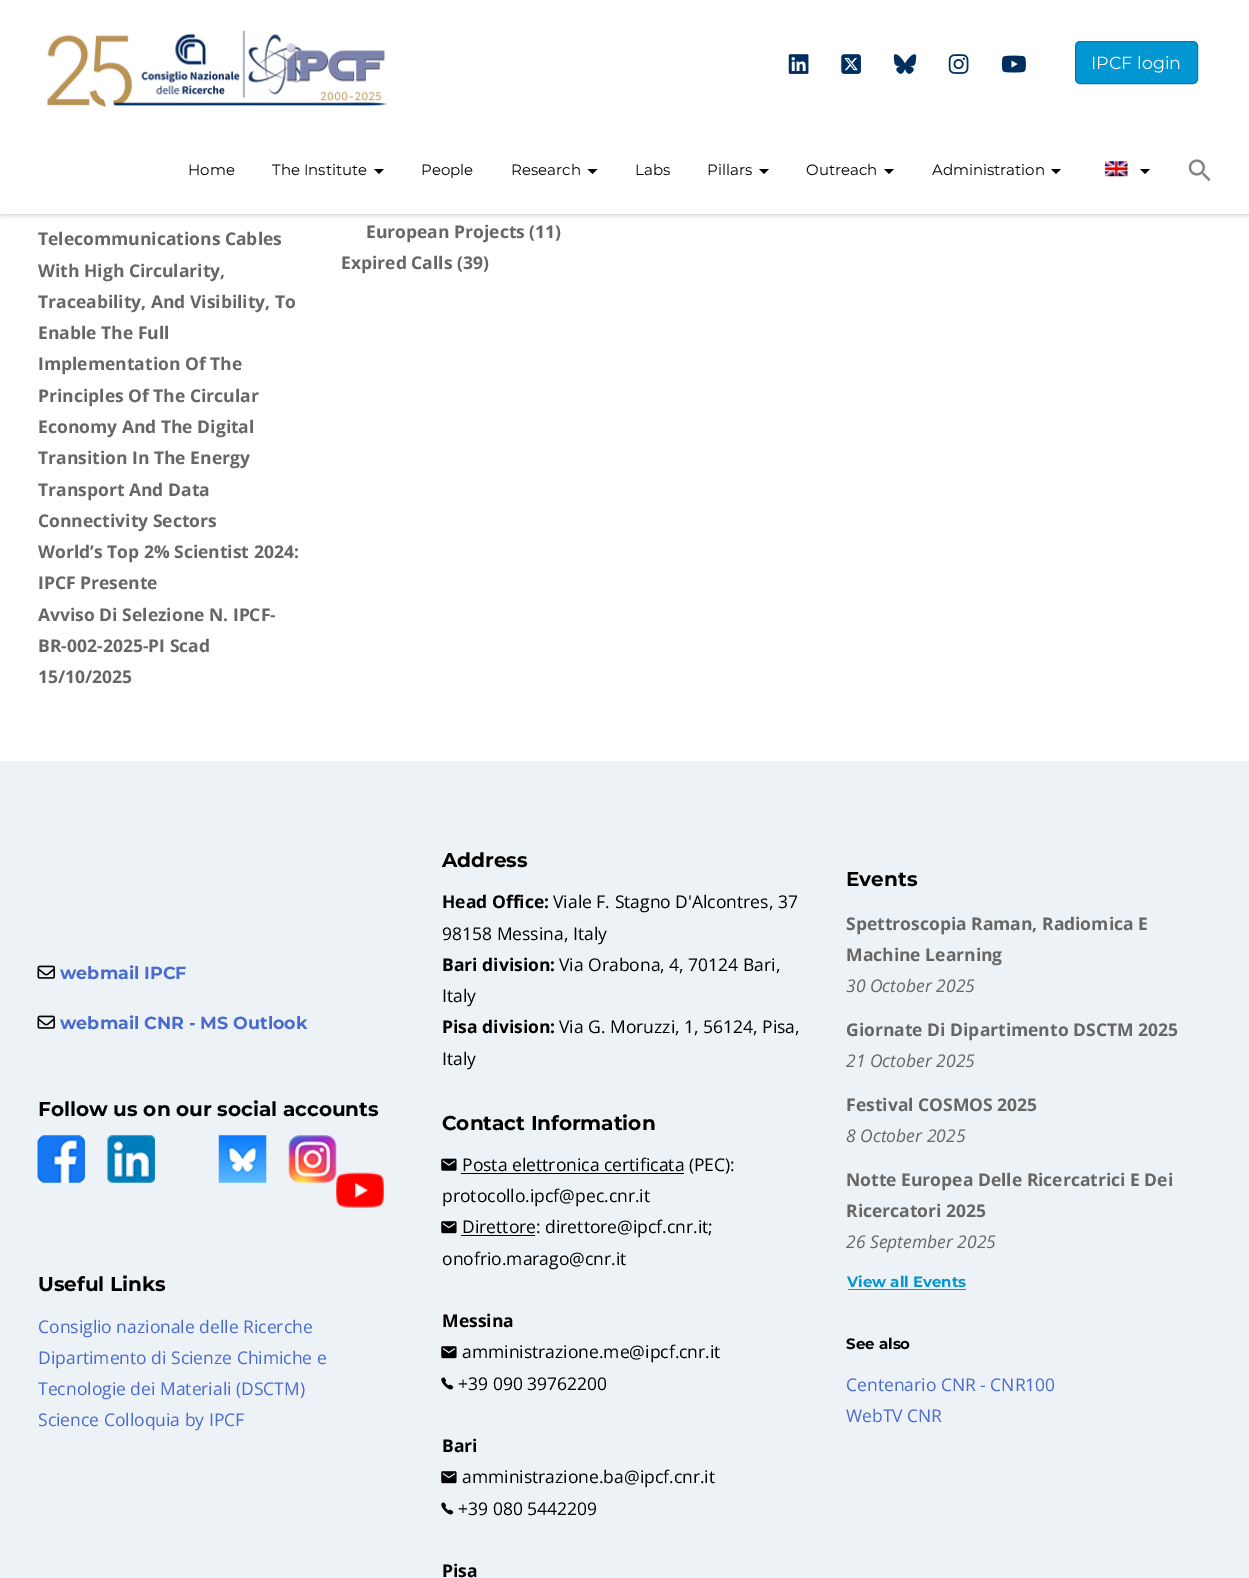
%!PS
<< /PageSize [1249 1578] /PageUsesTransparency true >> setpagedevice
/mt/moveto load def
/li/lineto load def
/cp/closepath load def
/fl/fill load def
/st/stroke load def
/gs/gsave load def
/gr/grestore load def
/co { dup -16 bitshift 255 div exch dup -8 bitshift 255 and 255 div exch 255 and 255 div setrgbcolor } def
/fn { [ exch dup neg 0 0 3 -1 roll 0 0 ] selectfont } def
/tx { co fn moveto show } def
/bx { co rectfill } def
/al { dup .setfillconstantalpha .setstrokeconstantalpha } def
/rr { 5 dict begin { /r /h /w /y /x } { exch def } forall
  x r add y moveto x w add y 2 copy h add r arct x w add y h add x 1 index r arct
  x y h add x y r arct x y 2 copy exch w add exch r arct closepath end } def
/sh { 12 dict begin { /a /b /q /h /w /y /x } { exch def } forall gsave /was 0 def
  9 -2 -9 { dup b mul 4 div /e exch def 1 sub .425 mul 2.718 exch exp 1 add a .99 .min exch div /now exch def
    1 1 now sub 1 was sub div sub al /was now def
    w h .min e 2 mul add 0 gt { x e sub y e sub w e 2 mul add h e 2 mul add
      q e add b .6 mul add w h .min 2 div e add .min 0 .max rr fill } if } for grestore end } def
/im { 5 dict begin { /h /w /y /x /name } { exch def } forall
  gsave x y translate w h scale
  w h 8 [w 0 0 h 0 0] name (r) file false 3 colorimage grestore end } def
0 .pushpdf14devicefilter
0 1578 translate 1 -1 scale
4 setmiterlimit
0 0 1249 1578 16#FFFFFF bx
16#000000 co
1 0 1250 214 0 3 .3 sh
0 0 1249 214 16#FFFFFF bx
(media/1.raw) 47 30 341 77 im
(media/2.raw) 788 54 21 20 im
(media/3.raw) 841 54 20 20 im
(media/4.raw) 893 54 24 20 im
(media/5.raw) 948 54 21 20 im
(media/6.raw) 1001 55 25 18 im
16#0296D3 co
1075.5 41.5 122 42 4.5 rr gs fl gr
16#027DB0 co
st
16#000000 co
374 169 mt 384 169 li 379 174 li cp fl
587.5 169 mt 597.5 169 li 592.5 174 li cp fl
759 169 mt 769 169 li 764 174 li cp fl
884 169 mt 894 169 li 889 174 li cp fl
1051 169 mt 1061 169 li 1056 174 li cp fl
(media/7.raw) 1104 161 24 16 im
1140 169 mt 1150 169 li 1145 174 li cp fl
(media/8.raw) 1188 159 23 23 im
0 761 1249 817 16#EDF2F6 bx
(media/9.raw) 37 965 18 14 im
(media/9.raw) 37 1015 18 14 im
(media/10.raw) 37 1135 48 48 im
(media/11.raw) 107 1135 48 48 im
(media/12.raw) 218 1135 49 48 im
(media/13.raw) 288 1135 49 48 im
(media/14.raw) 336 1172 48 36 im
(media/15.raw) 441 1158 16 13 im
461 1173 223 1 16#000000 bx
(media/16.raw) 441 1221 16 13 im
461 1235 74 1 16#000000 bx
(media/16.raw) 441 1346 16 13 im
(media/17.raw) 441 1377 13 13 im
(media/16.raw) 441 1471 16 13 im
(media/17.raw) 441 1502 13 13 im
848 1289 118 1 16#0296D3 bx
(IPCF login) 1091 69 /Montserrat-Regular 17.5 16#FFFFFF tx
(Home) 188 175 /Montserrat-Regular 15 16#000000 tx
(The Institute) 272 175 /Montserrat-Regular 15 16#000000 tx
(People) 421 175 /Montserrat-Regular 15 16#000000 tx
(Research) 511 175 /Montserrat-Regular 15 16#000000 tx
(Labs) 635 175 /Montserrat-Regular 15 16#000000 tx
(Pillars) 707 175 /Montserrat-Regular 15 16#000000 tx
(Outreach) 806 175 /Montserrat-Regular 15 16#000000 tx
(Administration) 932 175 /Montserrat-Regular 15 16#000000 tx
(Telecommunications Cables) 38 245 /OpenSans-Bold 17.5 16#666666 tx
(With High Circularity,) 38 277 /OpenSans-Bold 17.5 16#666666 tx
(Traceability, And Visibility, To) 38 308 /OpenSans-Bold 17.5 16#666666 tx
(Enable The Full) 38 339 /OpenSans-Bold 17.5 16#666666 tx
(Implementation Of The) 38 370 /OpenSans-Bold 17.5 16#666666 tx
(Principles Of The Circular) 38 402 /OpenSans-Bold 17.5 16#666666 tx
(Economy And The Digital) 38 433 /OpenSans-Bold 17.5 16#666666 tx
(Transition In The Energy) 38 464 /OpenSans-Bold 17.5 16#666666 tx
(Transport And Data) 38 496 /OpenSans-Bold 17.5 16#666666 tx
(Connectivity Sectors) 38 527 /OpenSans-Bold 17.5 16#666666 tx
(World’s Top 2% Scientist 2024:) 38 558 /OpenSans-Bold 17.5 16#666666 tx
(IPCF Presente) 38 589 /OpenSans-Bold 17.5 16#666666 tx
(Avviso Di Selezione N. IPCF-) 38 621 /OpenSans-Bold 17.5 16#666666 tx
(BR-002-2025-PI Scad) 38 652 /OpenSans-Bold 17.5 16#666666 tx
(15/10/2025) 38 683 /OpenSans-Bold 17.5 16#666666 tx
(European Projects \(11\)) 366 238 /OpenSans-Bold 17.5 16#666666 tx
(Expired Calls \(39\)) 341 269 /OpenSans-Bold 17.5 16#666666 tx
(webmail IPCF) 60 979 /Montserrat-Bold 17.5 16#4A6BCE tx
(webmail CNR - MS Outlook) 60 1029 /Montserrat-Bold 17.5 16#4A6BCE tx
(Follow us on our social accounts) 38 1116 /Montserrat-Bold 20 16#000000 tx
(Useful Links) 38 1291 /Montserrat-Bold 20 16#000000 tx
(Consiglio nazionale delle Ricerche) 38 1333 /OpenSans-Regular 17.5 16#4A6BCE tx
(Dipartimento di Scienze Chimiche e) 38 1364 /OpenSans-Regular 17.5 16#4A6BCE tx
(Tecnologie dei Materiali \(DSCTM\)) 38 1395 /OpenSans-Regular 17.5 16#4A6BCE tx
(Science Colloquia by IPCF) 38 1426 /OpenSans-Regular 17.5 16#4A6BCE tx
(Address) 442 867 /Montserrat-Bold 20 16#000000 tx
(Head Office:) 442 908 /OpenSans-Bold 17.5 16#000000 tx
(Viale F. Stagno D'Alcontres, 37) 553 908 /OpenSans-Regular 17.5 16#000000 tx
(98158 Messina, Italy) 442 940 /OpenSans-Regular 17.5 16#000000 tx
(Bari division:) 442 971 /OpenSans-Bold 17.5 16#000000 tx
(Via Orabona, 4, 70124 Bari,) 559 971 /OpenSans-Regular 17.5 16#000000 tx
(Italy) 442 1002 /OpenSans-Regular 17.5 16#000000 tx
(Pisa division:) 442 1033 /OpenSans-Bold 17.5 16#000000 tx
(Via G. Moruzzi, 1, 56124, Pisa,) 559 1033 /OpenSans-Regular 17.5 16#000000 tx
(Italy) 442 1065 /OpenSans-Regular 17.5 16#000000 tx
(Contact Information) 442 1130 /Montserrat-Bold 20 16#000000 tx
(Posta elettronica certificata \(PEC\):) 462 1171 /OpenSans-Regular 17.5 16#000000 tx
(protocollo.ipcf@pec.cnr.it) 442 1202 /OpenSans-Regular 17.5 16#000000 tx
(Direttore: direttore@ipcf.cnr.it;) 462 1233 /OpenSans-Regular 17.5 16#000000 tx
(onofrio.marago@cnr.it) 442 1265 /OpenSans-Regular 17.5 16#000000 tx
(Messina) 442 1327 /OpenSans-Bold 17.5 16#000000 tx
(amministrazione.me@ipcf.cnr.it) 462 1358 /OpenSans-Regular 17.5 16#000000 tx
(+39 090 39762200) 458 1390 /OpenSans-Regular 17.5 16#000000 tx
(Bari) 442 1452 /OpenSans-Bold 17.5 16#000000 tx
(amministrazione.ba@ipcf.cnr.it) 462 1483 /OpenSans-Regular 17.5 16#000000 tx
(+39 080 5442209) 458 1515 /OpenSans-Regular 17.5 16#000000 tx
(Pisa) 442 1577 /OpenSans-Bold 17.5 16#000000 tx
(Events) 846 886 /Montserrat-Bold 20 16#000000 tx
(Spettroscopia Raman, Radiomica E) 846 930 /OpenSans-Bold 17.5 16#666666 tx
(Machine Learning) 846 961 /OpenSans-Bold 17.5 16#666666 tx
(30 October 2025) 846 992 /OpenSans-Italic 17.5 16#666666 tx
(Giornate Di Dipartimento DSCTM 2025) 846 1036 /OpenSans-Bold 17.5 16#666666 tx
(21 October 2025) 846 1067 /OpenSans-Italic 17.5 16#666666 tx
(Festival COSMOS 2025) 846 1111 /OpenSans-Bold 17.5 16#666666 tx
(8 October 2025) 846 1142 /OpenSans-Italic 17.5 16#666666 tx
(Notte Europea Delle Ricercatrici E Dei) 846 1186 /OpenSans-Bold 17.5 16#666666 tx
(Ricercatori 2025) 846 1217 /OpenSans-Bold 17.5 16#666666 tx
(26 September 2025) 846 1248 /OpenSans-Italic 17.5 16#666666 tx
(View all Events) 847 1287 /Montserrat-Bold 15 16#0296D3 tx
(See also) 846 1349 /Montserrat-Bold 15 16#000000 tx
(Centenario CNR - CNR100) 846 1391 /OpenSans-Regular 17.5 16#4A6BCE tx
(WebTV CNR) 846 1422 /OpenSans-Regular 17.5 16#4A6BCE tx
.poppdf14devicefilter showpage
